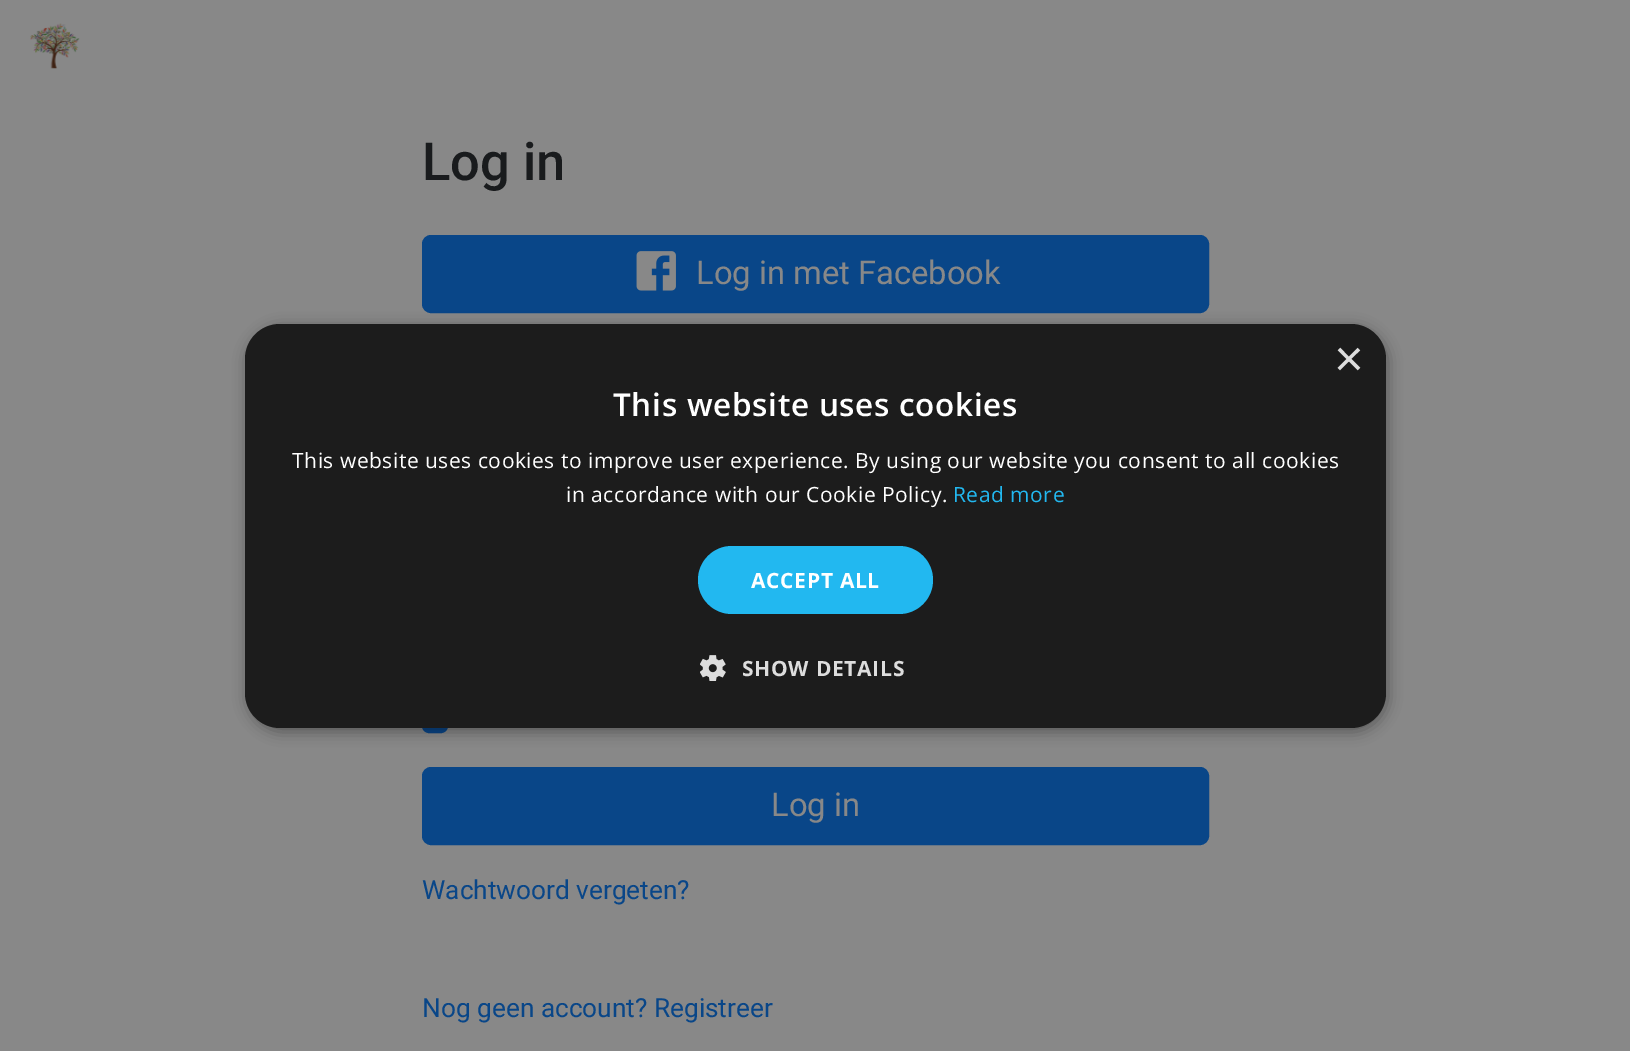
%!PS
<< /PageSize [1630 1051] /PageUsesTransparency true >> setpagedevice
/mt/moveto load def
/fl/fill load def
/st/stroke load def
/gs/gsave load def
/gr/grestore load def
/lw/setlinewidth load def
/co { dup -16 bitshift 255 div exch dup -8 bitshift 255 and 255 div exch 255 and 255 div setrgbcolor } def
/fn { [ exch dup neg 0 0 3 -1 roll 0 0 ] selectfont } def
/tx { co fn moveto show } def
/bx { co rectfill } def
/al { dup .setfillconstantalpha .setstrokeconstantalpha } def
/rr { 5 dict begin { /r /h /w /y /x } { exch def } forall
  x r add y moveto x w add y 2 copy h add r arct x w add y h add x 1 index r arct
  x y h add x y r arct x y 2 copy exch w add exch r arct closepath end } def
/sh { 12 dict begin { /a /b /q /h /w /y /x } { exch def } forall gsave /was 0 def
  9 -2 -9 { dup b mul 4 div /e exch def 1 sub .425 mul 2.718 exch exp 1 add a .99 .min exch div /now exch def
    1 1 now sub 1 was sub div sub al /was now def
    w h .min e 2 mul add 0 gt { x e sub y e sub w e 2 mul add h e 2 mul add
      q e add b .6 mul add w h .min 2 div e add .min 0 .max rr fill } if } for grestore end } def
/im { 5 dict begin { /h /w /y /x /name } { exch def } forall
  gsave x y translate w h scale
  w h 8 [w 0 0 h 0 0] name (r) file false 3 colorimage grestore end } def
0 .pushpdf14devicefilter
0 1051 translate 1 -1 scale
4 setmiterlimit
0 0 1630 1051 16#888888 bx
(media/1.raw) 30 23 50 46 im
16#094688 co
423 236 785 76 8 rr gs fl gr
2 lw
st
(media/2.raw) 636 251 40 40 im
423 708 24 24 6 rr gs fl gr
st
423 768 785 76 8 rr gs fl gr
st
16#000000 co
247 327 1141 405 35 7 .35 sh
16#1C1C1C co
245 324 1141 404 35 rr fl
16#22B8F0 co
698 546 235 68 34 rr fl
(media/3.raw) 700 655 26 26 im
(Log in) 422 180 /Roboto-Medium 52.5 16#191B1D tx
(Log in met Facebook) 696 284 /Roboto-Regular 32.75 16#888888 tx
(Log in) 771 816 /Roboto-Regular 32.75 16#888888 tx
(Wachtwoord vergeten?) 422 899 /Roboto-Regular 26.25 16#094688 tx
(Nog geen account? Registreer) 422 1017 /Roboto-Regular 26.25 16#094688 tx
(×) 1334 376 /LiberationSans-Regular 51 16#DDDDDD tx
/OpenSans-SemiBold 31.5 fn
16#FFFFFF co
613 416 mt .7 0 (This website uses cookies) ashow
/OpenSans-Regular 21 fn
292 468 mt .53 0 (This website uses cookies to improve user experience. By using our website you consent to all cookies) ashow
566 502 mt .53 0 (in accordance with our Cookie Policy.) ashow
16#22B8F0 co
953 502 mt .53 0 (Read more) ashow
/OpenSans-Bold 21 fn
16#FFFFFF co
751 588 mt .7 0 (ACCEPT ALL) ashow
16#DDDDDD co
742 676 mt .7 0 (SHOW DETAILS) ashow
.poppdf14devicefilter showpage
